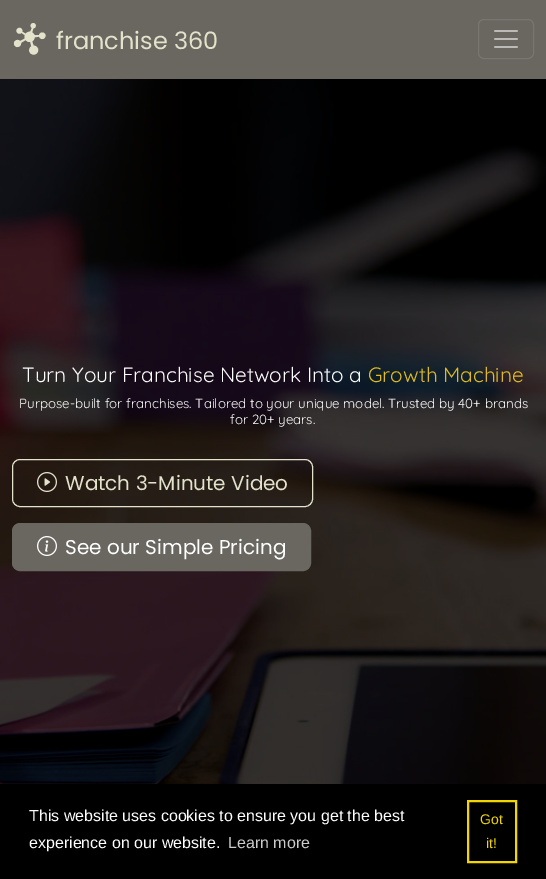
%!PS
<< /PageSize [546 879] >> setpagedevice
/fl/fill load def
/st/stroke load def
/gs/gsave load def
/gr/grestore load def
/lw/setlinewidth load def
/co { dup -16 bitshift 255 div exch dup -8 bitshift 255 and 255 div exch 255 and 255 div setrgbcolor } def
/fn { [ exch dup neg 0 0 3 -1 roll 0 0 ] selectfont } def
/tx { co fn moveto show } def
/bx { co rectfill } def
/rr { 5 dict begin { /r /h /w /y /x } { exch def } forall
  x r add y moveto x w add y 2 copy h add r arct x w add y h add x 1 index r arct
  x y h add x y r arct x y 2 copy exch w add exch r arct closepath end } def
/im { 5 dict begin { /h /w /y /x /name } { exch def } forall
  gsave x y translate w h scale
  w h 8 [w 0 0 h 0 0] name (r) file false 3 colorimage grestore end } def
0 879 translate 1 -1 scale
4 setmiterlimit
0 0 546 879 16#696760 bx
16#787670 co
478.5 19.5 55 39 5.5 rr st
(media/1.raw) 494 30 24 18 im
(media/2.raw) 0 79 546 705 im
16#E3E2CB co
12.5 459.5 300 47 7.5 rr st
(media/3.raw) 37 472 20 20 im
16#696760 co
12.5 523.5 298 47 7.5 rr gs fl gr
st
(media/4.raw) 37 536 20 20 im
0 784 546 95 16#000000 bx
16#F1D600 co
2 lw
468 801 48 61 rectstroke
(A) 12 49 /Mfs-Regular 35 16#E3E2CB tx
(franchise 360) 56 49 /Poppins-Regular 24 16#E3E2CB tx
(Turn Your Franchise Network Into a) 22 382 /Quicksand-Regular 20.75 16#FFFFFF tx
(Growth Machine) 368 382 /Quicksand-Regular 20.75 16#E2BC1F tx
(Purpose-built for franchises. Tailored to your unique model. Trusted by 40+ brands) 19 408 /Quicksand-Regular 13.35 16#FFFFFF tx
(for 20+ years.) 230 424 /Quicksand-Regular 13.35 16#FFFFFF tx
(Watch 3-Minute Video) 65 490 /Poppins-Regular 20 16#E3E2CB tx
(See our Simple Pricing) 65 554 /Poppins-Regular 20 16#FFFFFF tx
(This website uses cookies to ensure you get the best) 29 821 /LiberationSans-Regular 16 16#FFFFFF tx
(experience on our website.) 29 848 /LiberationSans-Regular 16 16#FFFFFF tx
(Learn more) 228 848 /LiberationSans-Regular 16 16#CCCCCC tx
(Got) 480 824 /LiberationSans-Regular 14 16#F1D600 tx
(it!) 486 848 /LiberationSans-Regular 14 16#F1D600 tx
showpage
